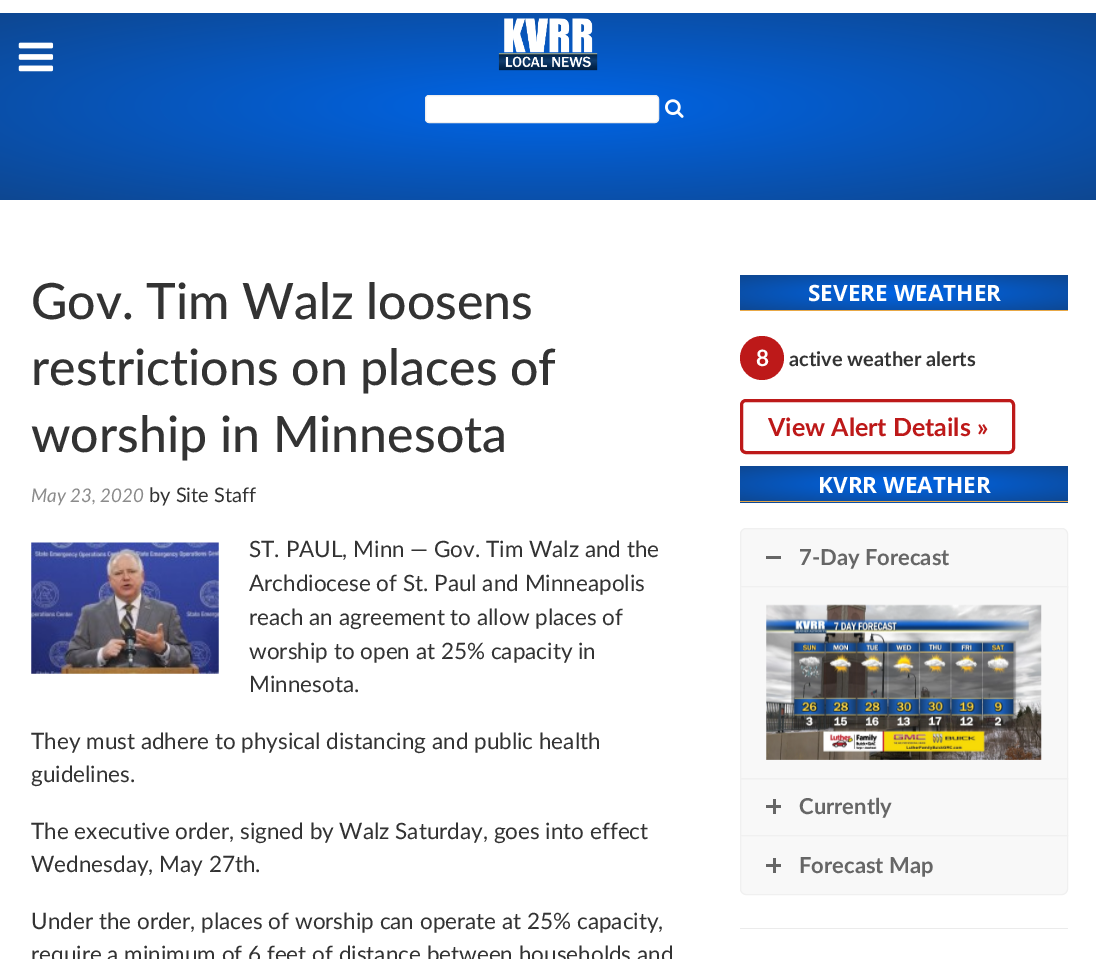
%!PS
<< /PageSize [1096 959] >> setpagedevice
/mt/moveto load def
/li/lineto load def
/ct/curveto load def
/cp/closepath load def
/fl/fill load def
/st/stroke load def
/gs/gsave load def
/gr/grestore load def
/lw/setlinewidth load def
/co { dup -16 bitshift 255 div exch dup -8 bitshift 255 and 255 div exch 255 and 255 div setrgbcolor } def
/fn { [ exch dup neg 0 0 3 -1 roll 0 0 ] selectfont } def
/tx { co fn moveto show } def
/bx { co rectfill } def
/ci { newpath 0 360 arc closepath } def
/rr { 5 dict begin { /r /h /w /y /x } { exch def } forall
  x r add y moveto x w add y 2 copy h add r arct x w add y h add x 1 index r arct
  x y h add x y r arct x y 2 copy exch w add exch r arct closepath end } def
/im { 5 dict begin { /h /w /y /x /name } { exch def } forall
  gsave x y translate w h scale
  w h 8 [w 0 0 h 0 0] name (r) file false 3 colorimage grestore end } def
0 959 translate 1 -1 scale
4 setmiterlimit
0 0 1096 959 16#FFFFFF bx
gs 0 13 mt 1096 13 li 1096 200 li 0 200 li cp clip newpath 548 106 translate 775 133 scale
<< /ShadingType 3 /ColorSpace /DeviceRGB /Coords [0 0 0 0 0 1] /Extend [true true] /Function << /FunctionType 2 /Domain [0 1] /C0 [0 .396 .906] /C1 [.055 .278 .569] /N 1 >> >> shfill gr
(media/1.raw) 18 42 36 30 im
(media/2.raw) 498 18 100 53 im
425.5 95.5 233 27 3.5 rr gs fl gr
16#EEEEEE co
st
(media/3.raw) 665 99 19 19 im
(media/4.raw) 31 542 188 132 im
gs 740 275 mt 1068 275 li 1068 310 li 740 310 li cp clip newpath 904 293 translate 232 25 scale
<< /ShadingType 3 /ColorSpace /DeviceRGB /Coords [0 0 0 0 0 1] /Extend [true true] /Function << /FunctionType 2 /Domain [0 1] /C0 [0 .396 .906] /C1 [.055 .278 .569] /N 1 >> >> shfill gr
740 310 328 1 16#E8A846 bx
16#BD1919 co
762 358 22 ci fl
3 lw
741.5 400.5 272 52 4.5 rr st
gs 740 466 mt 1068 466 li 1068 501 li 740 501 li cp clip newpath 904 484 translate 232 25 scale
<< /ShadingType 3 /ColorSpace /DeviceRGB /Coords [0 0 0 0 0 1] /Extend [true true] /Function << /FunctionType 2 /Domain [0 1] /C0 [0 .396 .906] /C1 [.055 .278 .569] /N 1 >> >> shfill gr
gs 740 502 mt 1068 502 li 1068 503 li 740 503 li cp clip newpath 904 519 translate 232 25 scale
<< /ShadingType 3 /ColorSpace /DeviceRGB /Coords [0 0 0 0 0 1] /Extend [true true] /Function << /FunctionType 2 /Domain [0 1] /C0 [0 .396 .906] /C1 [.055 .278 .569] /N 1 >> >> shfill gr
740 501 328 1 16#E8A846 bx
16#F8F8F8 co
746 528.5 mt 1062 528.5 li 1065 528.5 1067.5 531 1067.5 534 ct 1067.5 587.5 li 740.5 587.5 li 740.5 534 li 740.5 531 743 528.5 746 528.5 ct cp gs fl gr
16#F0F0F0 co
1 lw
st
766 556 15 3 16#666666 bx
16#F8F8F8 co
740.5 778.5 mt 1067.5 778.5 li 1067.5 835.5 li 740.5 835.5 li cp gs fl gr
16#F0F0F0 co
st
16#F8F8F8 co
740.5 586.5 mt 1067.5 586.5 li 1067.5 778.5 li 740.5 778.5 li cp gs fl gr
16#F0F0F0 co
st
(media/5.raw) 766 604 276 156 im
766 805 15 3 16#666666 bx
773 799 3 15 16#666666 bx
16#F8F8F8 co
740.5 835.5 mt 1067.5 835.5 li 1067.5 889 li 1067.5 892 1065 894.5 1062 894.5 ct 746 894.5 li 743 894.5 740.5 892 740.5 889 ct cp gs fl gr
16#F0F0F0 co
st
766 864 15 3 16#666666 bx
773 858 3 15 16#666666 bx
740 928 328 1 16#EBEBEB bx
(Gov. Tim Walz loosens) 31 319 /Lato-Medium 50 16#333333 tx
(restrictions on places of) 31 385 /Lato-Medium 50 16#333333 tx
(worship in Minnesota) 31 452 /Lato-Medium 50 16#333333 tx
(May 23, 2020) 31 502 /Lato-Italic 18.75 16#8B8B8B tx
(by Site Staff) 149 502 /Lato-Regular 20 16#333333 tx
(ST. PAUL, Minn — Gov. Tim Walz and the) 249 557 /Lato-Regular 22.5 16#333333 tx
(Archdiocese of St. Paul and Minneapolis) 249 591 /Lato-Regular 22.5 16#333333 tx
(reach an agreement to allow places of) 249 625 /Lato-Regular 22.5 16#333333 tx
(worship to open at 25% capacity in) 249 659 /Lato-Regular 22.5 16#333333 tx
(Minnesota.) 249 692 /Lato-Regular 22.5 16#333333 tx
(They must adhere to physical distancing and public health) 31 749 /Lato-Regular 22.5 16#333333 tx
(guidelines.) 31 782 /Lato-Regular 22.5 16#333333 tx
(The executive order, signed by Walz Saturday, goes into effect) 31 839 /Lato-Regular 22.5 16#333333 tx
(Wednesday, May 27th.) 31 872 /Lato-Regular 22.5 16#333333 tx
(Under the order, places of worship can operate at 25% capacity,) 31 929 /Lato-Regular 22.5 16#333333 tx
(require a minimum of 6 feet of distance between households and) 31 962 /Lato-Regular 22.5 16#333333 tx
(SEVERE WEATHER) 808 301 /OpenSans-Bold 22.5 16#FFFFFF tx
(8) 756 366 /Lato-Bold 22.5 16#FFFFFF tx
(active weather alerts) 789 366 /Lato-Bold 20 16#333333 tx
(View Alert Details ») 768 436 /Lato-Bold 25 16#BD1919 tx
(KVRR WEATHER) 818 493 /OpenSans-Bold 22.5 16#FFFFFF tx
(7-Day Forecast) 799 565 /Lato-Bold 22 16#666666 tx
(Currently) 799 814 /Lato-Bold 22 16#666666 tx
(Forecast Map) 799 873 /Lato-Bold 22 16#666666 tx
showpage
